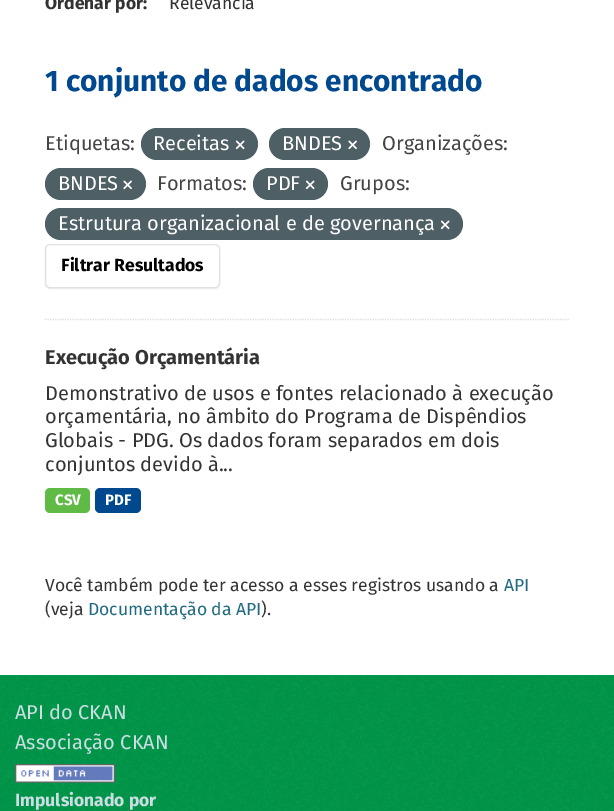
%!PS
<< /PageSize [614 811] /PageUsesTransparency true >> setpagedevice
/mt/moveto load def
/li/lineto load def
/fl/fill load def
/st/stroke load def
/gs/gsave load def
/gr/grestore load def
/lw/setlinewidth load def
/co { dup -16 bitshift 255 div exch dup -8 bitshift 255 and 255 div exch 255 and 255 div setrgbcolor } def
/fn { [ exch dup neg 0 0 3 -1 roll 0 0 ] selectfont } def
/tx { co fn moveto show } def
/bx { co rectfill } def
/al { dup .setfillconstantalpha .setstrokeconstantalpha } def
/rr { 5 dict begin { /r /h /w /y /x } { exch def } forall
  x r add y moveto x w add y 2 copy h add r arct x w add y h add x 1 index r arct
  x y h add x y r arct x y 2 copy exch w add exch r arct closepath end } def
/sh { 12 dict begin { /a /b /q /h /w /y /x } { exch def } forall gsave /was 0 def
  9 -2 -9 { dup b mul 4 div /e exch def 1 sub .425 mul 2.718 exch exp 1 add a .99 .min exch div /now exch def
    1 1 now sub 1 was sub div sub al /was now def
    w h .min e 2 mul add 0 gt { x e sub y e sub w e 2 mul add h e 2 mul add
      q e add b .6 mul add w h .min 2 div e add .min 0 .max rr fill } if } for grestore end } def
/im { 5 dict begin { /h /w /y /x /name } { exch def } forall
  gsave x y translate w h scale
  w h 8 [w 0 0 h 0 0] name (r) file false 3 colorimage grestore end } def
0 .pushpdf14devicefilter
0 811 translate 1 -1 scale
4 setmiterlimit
0 0 614 811 16#FFFFFF bx
16#DDDDDD co
1.2 lw
[1.25 1.25] 0 setdash
45 319.5 mt 570 319.5 li st
16#4E5F65 co
141 128 117 32 16 rr fl
(media/1.raw) 235 140 10 10 im
269 128 101 32 16 rr fl
(media/2.raw) 348 140 9 10 im
45 168 101 32 16 rr fl
(media/2.raw) 123 180 9 10 im
253 168 75 32 16 rr fl
(media/1.raw) 305 180 10 10 im
45 208 418 32 16 rr fl
(media/1.raw) 440 220 10 10 im
16#000000 co
45 245 175 44 5 .5 .07 sh
16#FFFFFF co
45.5 244.5 174 43 4.5 rr gs fl gr
16#DEE2E6 co
1 lw
[] 0 setdash
st
16#60BB46 co
45 488 45 25 5 rr fl
16#01498F co
95 488 46 25 5 rr fl
0 675 614 136 16#00984A bx
(media/3.raw) 0 676 614 135 im
(media/4.raw) 15 764 100 19 im
(Ordenar por:) 45 9 /FiraSans-Bold 17.5 16#333333 tx
(Relevância) 169 9 /FiraSans-Regular 17.5 16#333333 tx
(1 conjunto de dados encontrado) 45 91 /FiraSans-Bold 29.75 16#01498F tx
(Etiquetas:) 45 150 /FiraSans-Regular 20 16#444444 tx
(Receitas) 153 150 /FiraSans-Regular 20 16#FFFFFF tx
(BNDES) 282 150 /FiraSans-Regular 20 16#FFFFFF tx
(Organizações:) 382 150 /FiraSans-Regular 20 16#444444 tx
(BNDES) 58 190 /FiraSans-Regular 20 16#FFFFFF tx
(Formatos:) 157 190 /FiraSans-Regular 20 16#444444 tx
(PDF) 266 190 /FiraSans-Regular 20 16#FFFFFF tx
(Grupos:) 340 190 /FiraSans-Regular 20 16#444444 tx
(Estrutura organizacional e de governança) 58 230 /FiraSans-Regular 20 16#FFFFFF tx
(Filtrar Resultados) 61 271 /FiraSans-Bold 17.5 16#000000 tx
(Execução Orçamentária) 45 364 /FiraSans-Bold 20 16#333333 tx
(Demonstrativo de usos e fontes relacionado à execução) 45 400 /FiraSans-Regular 20 16#333333 tx
(orçamentária, no âmbito do Programa de Dispêndios) 45 423 /FiraSans-Regular 20 16#333333 tx
(Globais - PDG. Os dados foram separados em dois) 45 447 /FiraSans-Regular 20 16#333333 tx
(conjuntos devido à...) 45 471 /FiraSans-Regular 20 16#333333 tx
(CSV) 55 505 /FiraSans-Bold 15 16#FFFFFF tx
(PDF) 105 505 /FiraSans-Bold 15 16#FFFFFF tx
(Você também pode ter acesso a esses registros usando a) 45 591 /FiraSans-Regular 17.5 16#333333 tx
(API) 504 591 /FiraSans-Regular 17.5 16#206B82 tx
(\(veja) 45 615 /FiraSans-Regular 17.5 16#333333 tx
(Documentação da API) 88 615 /FiraSans-Regular 17.5 16#206B82 tx
(\).) 261 615 /FiraSans-Regular 17.5 16#333333 tx
(API do CKAN) 15 719 /FiraSans-Regular 20 16#CCDEE3 tx
(Associação CKAN) 15 749 /FiraSans-Regular 20 16#CCDEE3 tx
(Impulsionado por) 15 806 /FiraSans-Bold 17.5 16#CCDEE3 tx
.poppdf14devicefilter showpage
